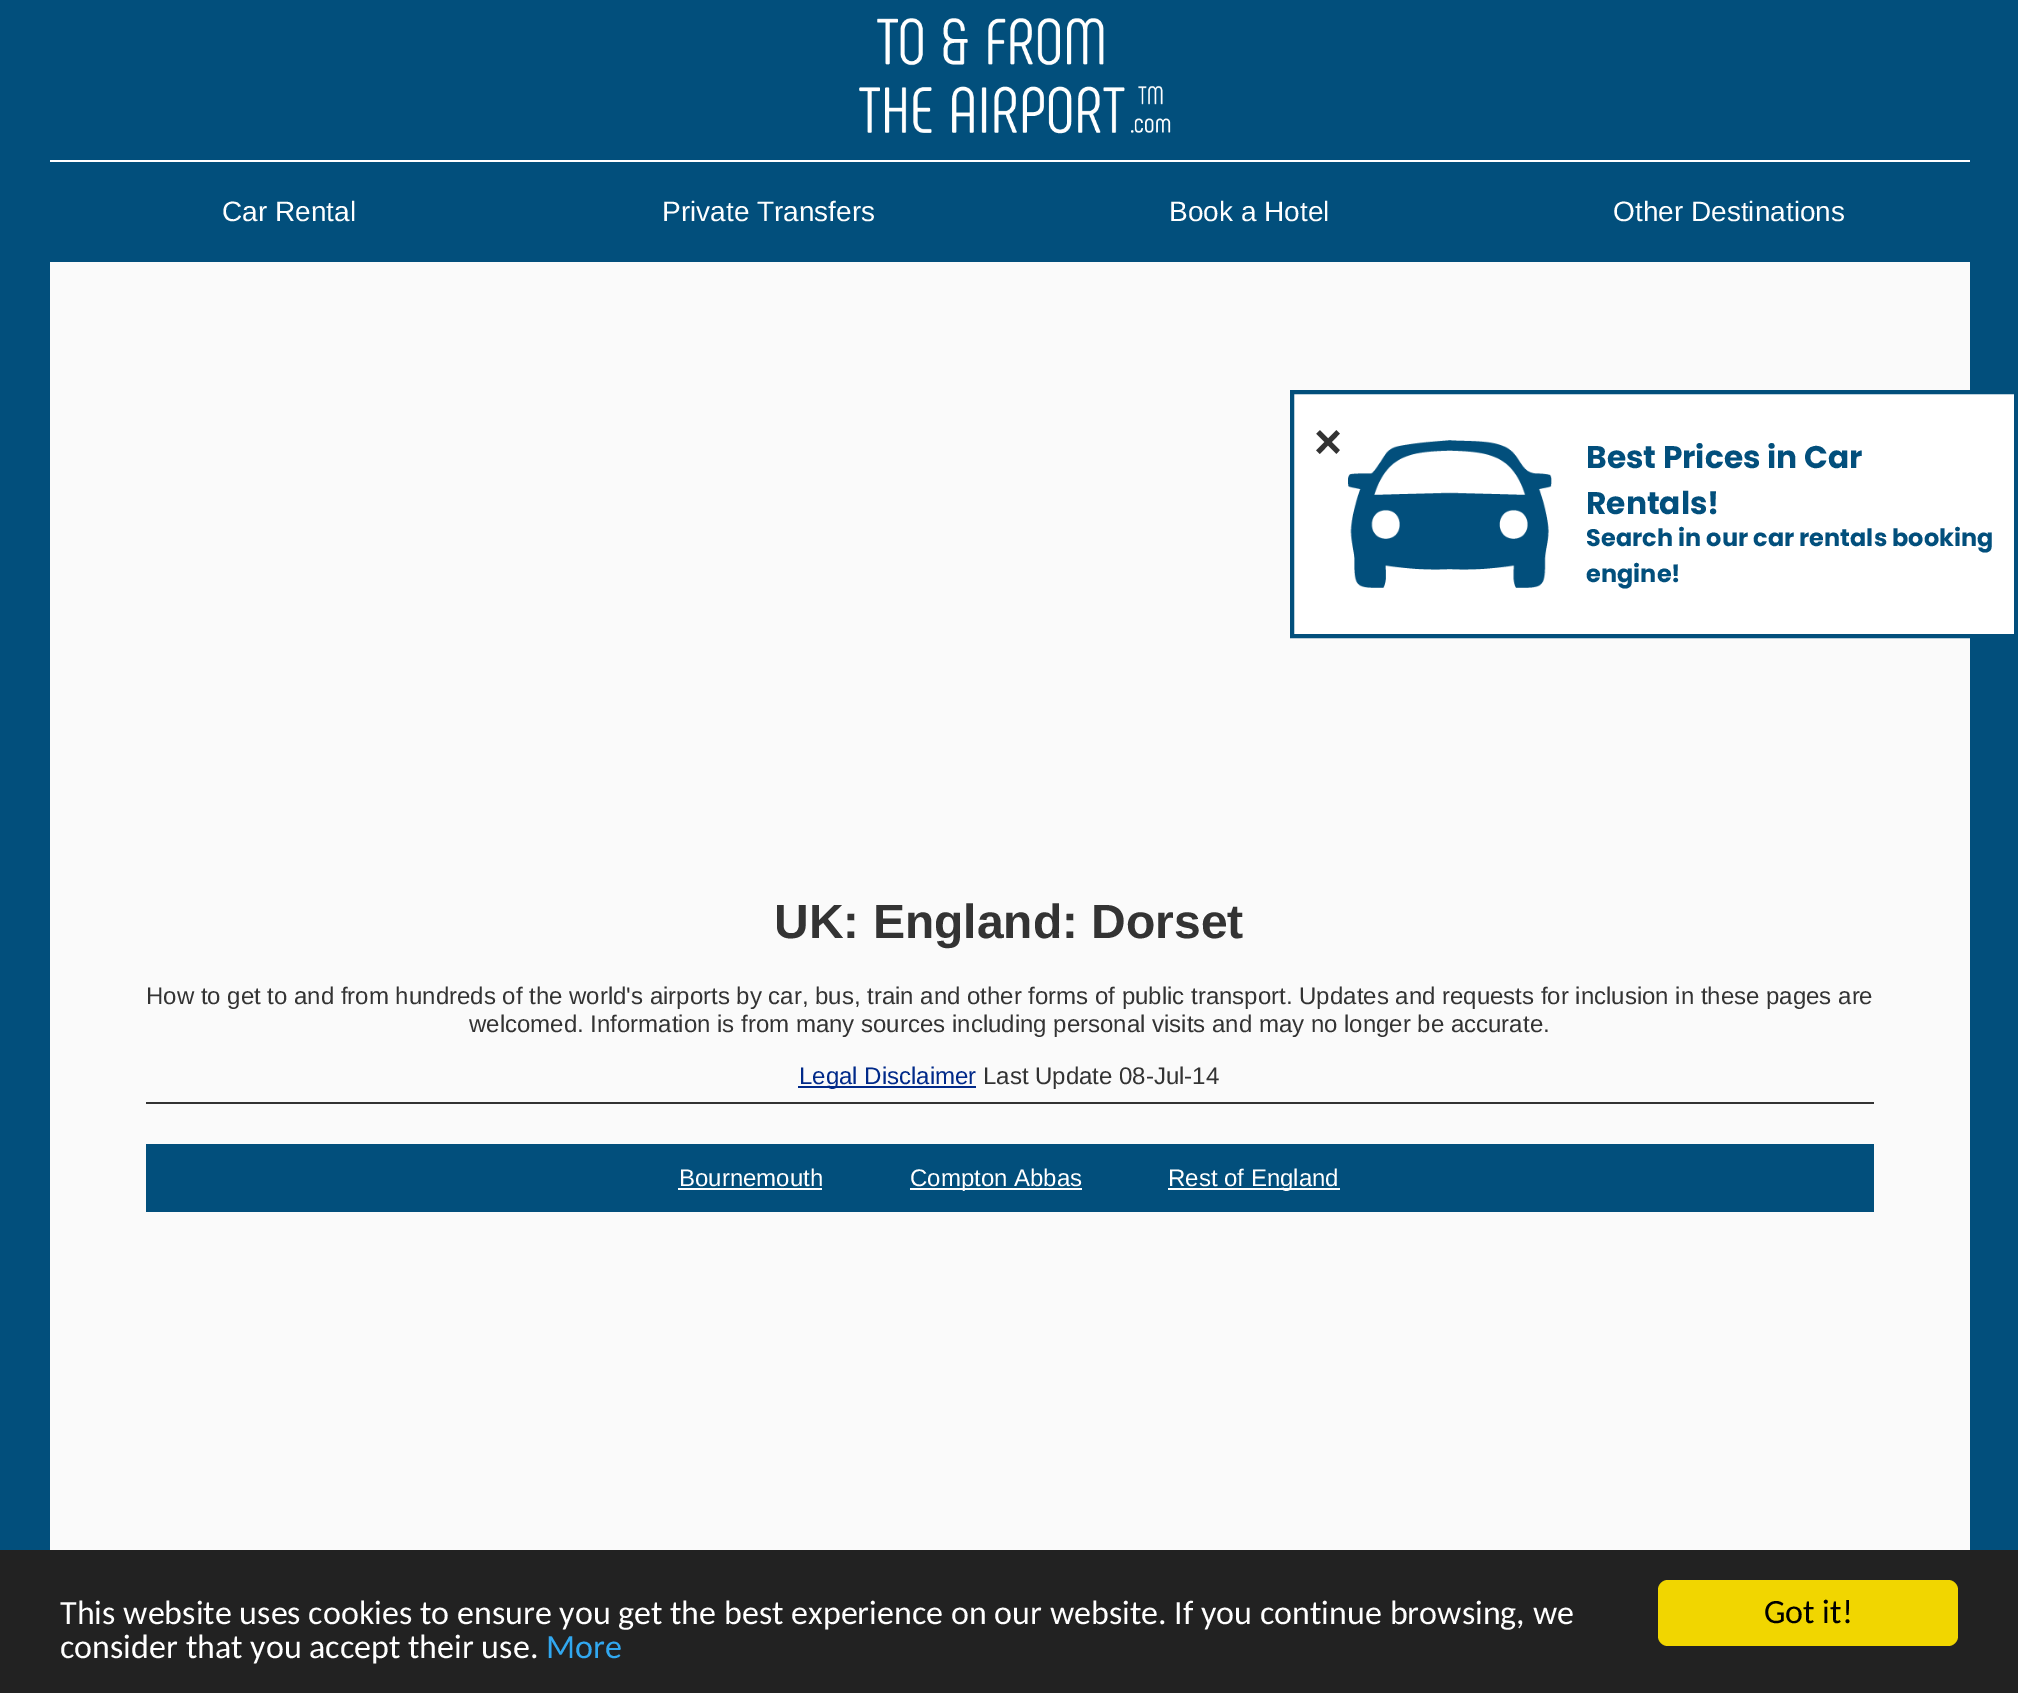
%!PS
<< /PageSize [2018 1693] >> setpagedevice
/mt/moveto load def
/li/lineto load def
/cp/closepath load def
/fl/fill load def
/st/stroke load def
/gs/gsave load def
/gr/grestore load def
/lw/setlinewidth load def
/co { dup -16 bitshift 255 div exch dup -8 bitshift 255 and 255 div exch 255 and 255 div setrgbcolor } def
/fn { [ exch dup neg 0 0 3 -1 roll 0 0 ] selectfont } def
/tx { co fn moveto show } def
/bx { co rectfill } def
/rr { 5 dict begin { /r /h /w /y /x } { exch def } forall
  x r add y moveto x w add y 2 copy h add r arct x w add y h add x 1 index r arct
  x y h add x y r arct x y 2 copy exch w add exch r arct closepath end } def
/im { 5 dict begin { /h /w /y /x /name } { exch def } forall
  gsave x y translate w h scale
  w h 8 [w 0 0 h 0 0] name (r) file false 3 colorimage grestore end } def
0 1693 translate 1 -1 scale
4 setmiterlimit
0 0 2018 1693 16#024F7C bx
50 262 1920 1288 16#FAFAFA bx
(media/1.raw) 859 18 312 116 im
50 160 1920 2 16#FFFFFF bx
1292 392 mt 2016 392 li 2016 636 li 1292 636 li cp gs fl gr
16#024F7C co
4 lw
st
(media/2.raw) 1348 440 204 148 im
798 1086 178 2 16#002989 bx
146 1102 1728 2 16#333333 bx
146 1144 1728 68 16#024F7C bx
678 1188 144 2 16#FFFFFF bx
910 1188 172 2 16#FFFFFF bx
1168 1188 172 2 16#FFFFFF bx
0 1550 2018 143 16#222222 bx
16#F1D600 co
1658 1580 300 66 10 rr fl
(Car Rental) 222 221 /LiberationSans-Regular 28 16#FFFFFF tx
(Private Transfers) 662 221 /LiberationSans-Regular 28 16#FFFFFF tx
(Book a Hotel) 1169 221 /LiberationSans-Regular 28 16#FFFFFF tx
(Other Destinations) 1613 221 /LiberationSans-Regular 28 16#FFFFFF tx
(×) 1314 458 /LiberationSans-Bold 48 16#333333 tx
(Best Prices in Car) 1586 468 /Poppins-Bold 31.25 16#024F7C tx
(Rentals!) 1586 514 /Poppins-Bold 31.25 16#024F7C tx
(Search in our car rentals booking) 1586 546 /Poppins-Bold 24 16#024F7C tx
(engine!) 1586 582 /Poppins-Bold 24 16#024F7C tx
(UK: England: Dorset) 774 938 /LiberationSans-Bold 48 16#333333 tx
(How to get to and from hundreds of the world's airports by car, bus, train and other forms of public transport. Updates and requests for inclusion in these pages are) 146 1004 /LiberationSans-Regular 24 16#333333 tx
(welcomed. Information is from many sources including personal visits and may no longer be accurate.) 469 1032 /LiberationSans-Regular 24 16#333333 tx
(Legal Disclaimer) 799 1084 /LiberationSans-Regular 24 16#002989 tx
(Last Update 08-Jul-14) 983 1084 /LiberationSans-Regular 24 16#333333 tx
(Bournemouth) 679 1186 /LiberationSans-Regular 24 16#FFFFFF tx
(Compton Abbas) 910 1186 /LiberationSans-Regular 24 16#FFFFFF tx
(Rest of England) 1168 1186 /LiberationSans-Regular 24 16#FFFFFF tx
(This website uses cookies to ensure you get the best experience on our website. If you continue browsing, we) 60 1624 /Carlito-Regular 34 16#FFFFFF tx
(consider that you accept their use.) 60 1658 /Carlito-Regular 34 16#FFFFFF tx
(More) 546 1658 /Carlito-Regular 34 16#31A8F0 tx
(Got it!) 1764 1623 /Carlito-Regular 34 16#000000 tx
showpage
